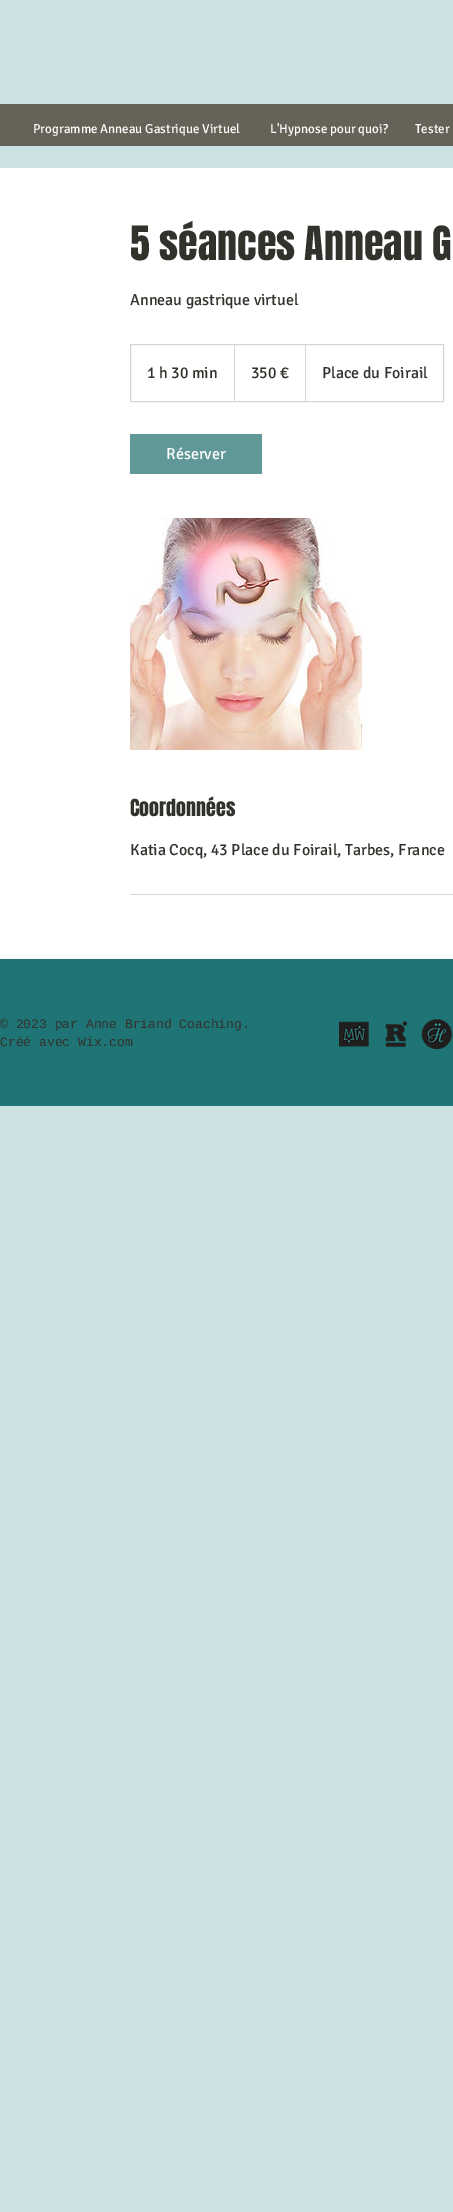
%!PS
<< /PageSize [453 2212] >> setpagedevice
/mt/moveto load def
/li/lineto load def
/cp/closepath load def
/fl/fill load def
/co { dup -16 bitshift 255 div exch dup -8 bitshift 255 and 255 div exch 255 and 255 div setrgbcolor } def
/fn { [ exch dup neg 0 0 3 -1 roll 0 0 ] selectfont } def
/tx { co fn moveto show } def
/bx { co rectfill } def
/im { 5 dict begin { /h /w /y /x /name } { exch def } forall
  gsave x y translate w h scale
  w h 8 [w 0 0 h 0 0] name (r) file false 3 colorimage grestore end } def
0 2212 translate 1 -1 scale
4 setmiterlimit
0 0 453 2212 16#CCE2E2 bx
0 104 453 42 16#666258 bx
0 168 453 791 16#FFFFFF bx
16#D6D6D5 co
130.5 344.5 313 57 rectstroke
234 401 mt 234 344 li 235 345 li 235 401 li cp fl
305 401 mt 305 344 li 306 345 li 306 401 li cp fl
130 434 132 40 16#609797 bx
(media/1.raw) 130 518 232 232 im
130 894 323 1 16#D6D6D5 bx
0 959 453 147 16#1F7575 bx
(media/2.raw) 339 1019 114 30 im
(Programme Anneau Gastrique Virtuel) 33 133 /Signika-Regular 13 16#FFFFFF tx
(L'Hypnose pour quoi?) 270 133 /Signika-Regular 13 16#FFFFFF tx
(Tester) 415 133 /Signika-Regular 13 16#FFFFFF tx
(5 séances Anneau G) 130 260 /Anton-Regular 40 16#33312C tx
(Anneau gastrique virtuel) 130 305 /Signika-Regular 16 16#33312C tx
(1 h 30 min) 147 378 /Signika-Regular 16 16#33312C tx
(350 €) 251 378 /Signika-Regular 16 16#33312C tx
(Place du Foirail) 322 378 /Signika-Regular 16 16#33312C tx
(Réserver) 166 459 /Signika-Regular 16 16#FFFFFF tx
(Coordonnées) 130 816 /Anton-Regular 20 16#33312C tx
(Katia Cocq, 43 Place du Foirail, Tarbes, France) 130 855 /Signika-Regular 16 16#33312C tx
(© 2023 par Anne Briand Coaching.) 0 1028 /LiberationMono-Regular 13 16#33312C tx
(Créé avec Wix.com) 0 1046 /LiberationMono-Regular 13 16#33312C tx
showpage
